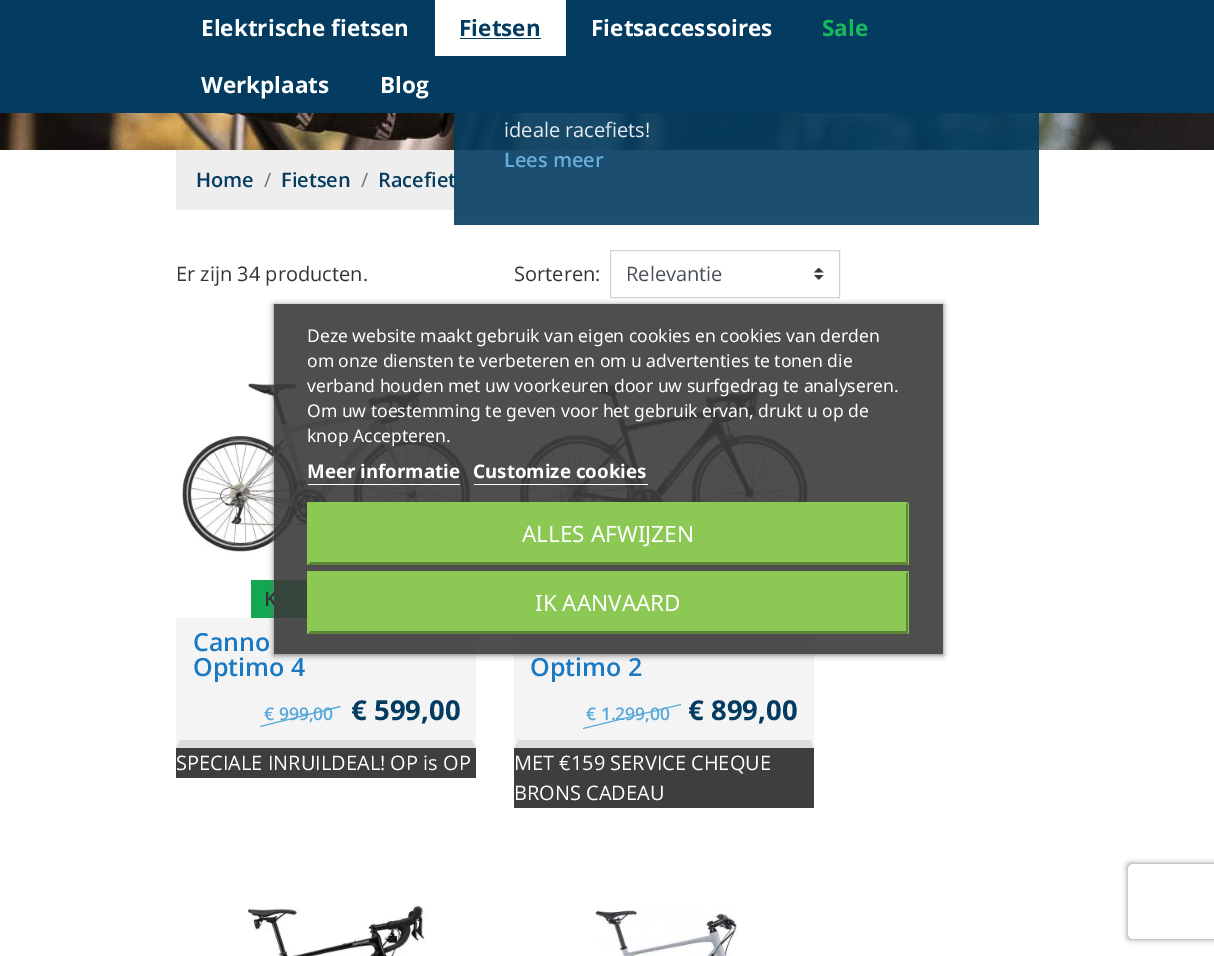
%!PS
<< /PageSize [1214 956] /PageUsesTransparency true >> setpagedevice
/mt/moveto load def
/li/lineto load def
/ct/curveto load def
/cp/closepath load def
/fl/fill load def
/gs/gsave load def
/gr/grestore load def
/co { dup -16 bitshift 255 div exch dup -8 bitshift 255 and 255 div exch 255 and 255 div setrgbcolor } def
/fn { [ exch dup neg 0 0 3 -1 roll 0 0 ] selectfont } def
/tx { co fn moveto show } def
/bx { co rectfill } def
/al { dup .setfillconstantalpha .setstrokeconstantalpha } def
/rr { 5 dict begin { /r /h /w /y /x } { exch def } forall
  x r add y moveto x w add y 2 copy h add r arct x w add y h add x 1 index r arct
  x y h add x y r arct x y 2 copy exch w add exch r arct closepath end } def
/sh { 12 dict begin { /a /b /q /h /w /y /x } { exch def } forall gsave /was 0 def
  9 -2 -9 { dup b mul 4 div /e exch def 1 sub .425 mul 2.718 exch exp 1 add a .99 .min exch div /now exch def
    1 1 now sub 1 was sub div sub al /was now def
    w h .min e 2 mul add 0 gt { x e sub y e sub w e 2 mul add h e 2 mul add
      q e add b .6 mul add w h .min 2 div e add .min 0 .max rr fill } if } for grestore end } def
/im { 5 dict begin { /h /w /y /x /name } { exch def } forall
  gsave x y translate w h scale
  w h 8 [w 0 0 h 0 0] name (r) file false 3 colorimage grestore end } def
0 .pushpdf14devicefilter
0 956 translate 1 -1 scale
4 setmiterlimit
0 0 1214 956 16#FFFFFF bx
0 0 1214 113 16#033C60 bx
435 0 131 56 16#FFFFFF bx
460 38 81 1 16#033C60 bx
(media/1.raw) 0 113 1214 37 im
176 150 863 60 16#EEEEEE bx
(media/2.raw) 814 268 10 12 im
16#CED4DA co
610.5 250.5 229 47 rectstroke
(media/3.raw) 182 383 288 171 im
251 580 56 38 16#14A751 bx
176 618 300 130 16#F4F4F4 bx
16#DDDDDD co
476 748 mt 176 748 li 180 740 li 472 740 li cp fl
16#F4F4F4 co
176 748 mt 176 618 li 180 618 li 180 740 li cp fl
16#58A8D9 co
260 726 mt 340 706 li 341 707 li 260 727 li cp fl
176 748 300 30 16#3E3E3E bx
(media/4.raw) 520 383 288 119 im
514 634 300 114 16#F4F4F4 bx
16#DDDDDD co
814 748 mt 514 748 li 518 740 li 810 740 li cp fl
16#F4F4F4 co
514 748 mt 514 618 li 518 618 li 518 740 li cp fl
16#58A8D9 co
583 728 mt 681 704 li 681 705 li 583 729 li cp fl
514 748 300 60 16#3E3E3E bx
(media/5.raw) 248 904 178 52 im
(media/6.raw) 595 910 142 46 im
gs
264 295 mt 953 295 li 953 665 li 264 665 li cp 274 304 mt 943 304 li 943 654 li 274 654 li cp eoclip newpath
16#707070 co
274 305 669 350 0 3 1 sh
gr
gs
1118 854 mt 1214 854 li 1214 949 li 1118 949 li cp 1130.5 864 mt 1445.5 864 li 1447 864 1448 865 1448 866.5 ct 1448 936.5 li 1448 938 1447 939 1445.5 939 ct 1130.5 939 li 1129 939 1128 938 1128 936.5 ct 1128 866.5 li 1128 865 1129 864 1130.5 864 ct cp eoclip newpath
16#808080 co
1128 864 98 75 2.5 3 1 sh
gr
(Elektrische fietsen) 201 36 /OpenSans-Bold 22.5 16#FFFFFF tx
(Fietsen) 459 36 /OpenSans-Bold 22.5 16#033C60 tx
(Fietsaccessoires) 591 36 /OpenSans-Bold 22.5 16#FFFFFF tx
(Sale) 822 36 /OpenSans-Bold 22.5 16#18B95B tx
(Werkplaats) 201 93 /OpenSans-Bold 22.5 16#FFFFFF tx
(Blog) 380 93 /OpenSans-Bold 22.5 16#FFFFFF tx
(Home) 196 187 /OpenSans-SemiBold 20 16#033C60 tx
(/) 264 187 /OpenSans-Regular 20 16#6C757D tx
(Fietsen) 281 187 /OpenSans-SemiBold 20 16#033C60 tx
(/) 361 187 /OpenSans-Regular 20 16#6C757D tx
(Racefiet) 378 187 /OpenSans-SemiBold 20 16#033C60 tx
0.9 al
454 113 585 112 16#033C60 bx
1 al
(Lees meer) 504 167 /OpenSans-SemiBold 20 16#67AFDB tx
(ideale racefiets!) 504 137 /OpenSans-Regular 20 16#E7ECF0 tx
(Er zijn 34 producten.) 176 281 /OpenSans-Regular 20 16#333333 tx
(Sorteren:) 514 281 /OpenSans-Regular 20 16#333333 tx
(Relevantie) 626 281 /OpenSans-Regular 20 16#495057 tx
(K) 264 606 /OpenSans-SemiBold 20 16#333333 tx
(Canno) 193 651 /OpenSans-SemiBold 25 16#1979C3 tx
(Optimo 4) 193 676 /OpenSans-SemiBold 25 16#1979C3 tx
(€ 999,00) 264 720 /OpenSans-SemiBold 17.5 16#58A8D9 tx
(€ 599,00) 351 720 /OpenSans-Bold 27.5 16#033C60 tx
(SPECIALE INRUILDEAL! OP is OP) 176 770 /OpenSans-Regular 20 16#FFFFFF tx
(Optimo 2) 530 676 /OpenSans-SemiBold 25 16#1979C3 tx
(€ 1.299,00) 586 720 /OpenSans-SemiBold 17.5 16#58A8D9 tx
(€ 899,00) 688 720 /OpenSans-Bold 27.5 16#033C60 tx
(MET €159 SERVICE CHEQUE) 514 770 /OpenSans-Regular 20 16#FFFFFF tx
(BRONS CADEAU) 514 800 /OpenSans-Regular 20 16#FFFFFF tx
0.9 al
274 304 669 350 16#3B3B3B bx
1 al
(Deze website maakt gebruik van eigen cookies en cookies van derden) 307 342 /NotoSans-Regular 17.5 16#FFFFFF tx
(om onze diensten te verbeteren en om u advertenties te tonen die) 307 367 /NotoSans-Regular 17.5 16#FFFFFF tx
(verband houden met uw voorkeuren door uw surfgedrag te analyseren.) 307 392 /NotoSans-Regular 17.5 16#FFFFFF tx
(Om uw toestemming te geven voor het gebruik ervan, drukt u op de) 307 417 /NotoSans-Regular 17.5 16#FFFFFF tx
(knop Accepteren.) 307 442 /NotoSans-Regular 17.5 16#FFFFFF tx
(Meer informatie) 307 478 /NotoSans-Bold 18.75 16#FFFFFF tx
308 484 152 1 16#FFFFFF bx
(Customize cookies) 473 478 /NotoSans-Bold 18.75 16#FFFFFF tx
474 484 174 1 16#FFFFFF bx
308 503 601 62 16#8BC954 bx
307 502 mt 908 502 li 906 505 li 310 505 li cp fl
16#5D8638 co
908 502 mt 908 565 li 906 562 li 906 505 li cp fl
908 565 mt 307 565 li 310 562 li 906 562 li cp fl
16#8BC954 co
307 565 mt 307 502 li 310 505 li 310 562 li cp fl
(ALLES AFWIJZEN) 522 542 /NotoSans-Regular 22.5 16#FFFFFF tx
308 571 601 63 16#8BC954 bx
307 571 mt 908 571 li 906 574 li 310 574 li cp fl
16#5D8638 co
908 571 mt 908 634 li 906 631 li 906 574 li cp fl
908 634 mt 307 634 li 310 631 li 906 631 li cp fl
16#8BC954 co
307 634 mt 307 571 li 310 574 li 310 631 li cp fl
(IK AANVAARD) 535 611 /NotoSans-Regular 22.5 16#FFFFFF tx
.poppdf14devicefilter showpage
